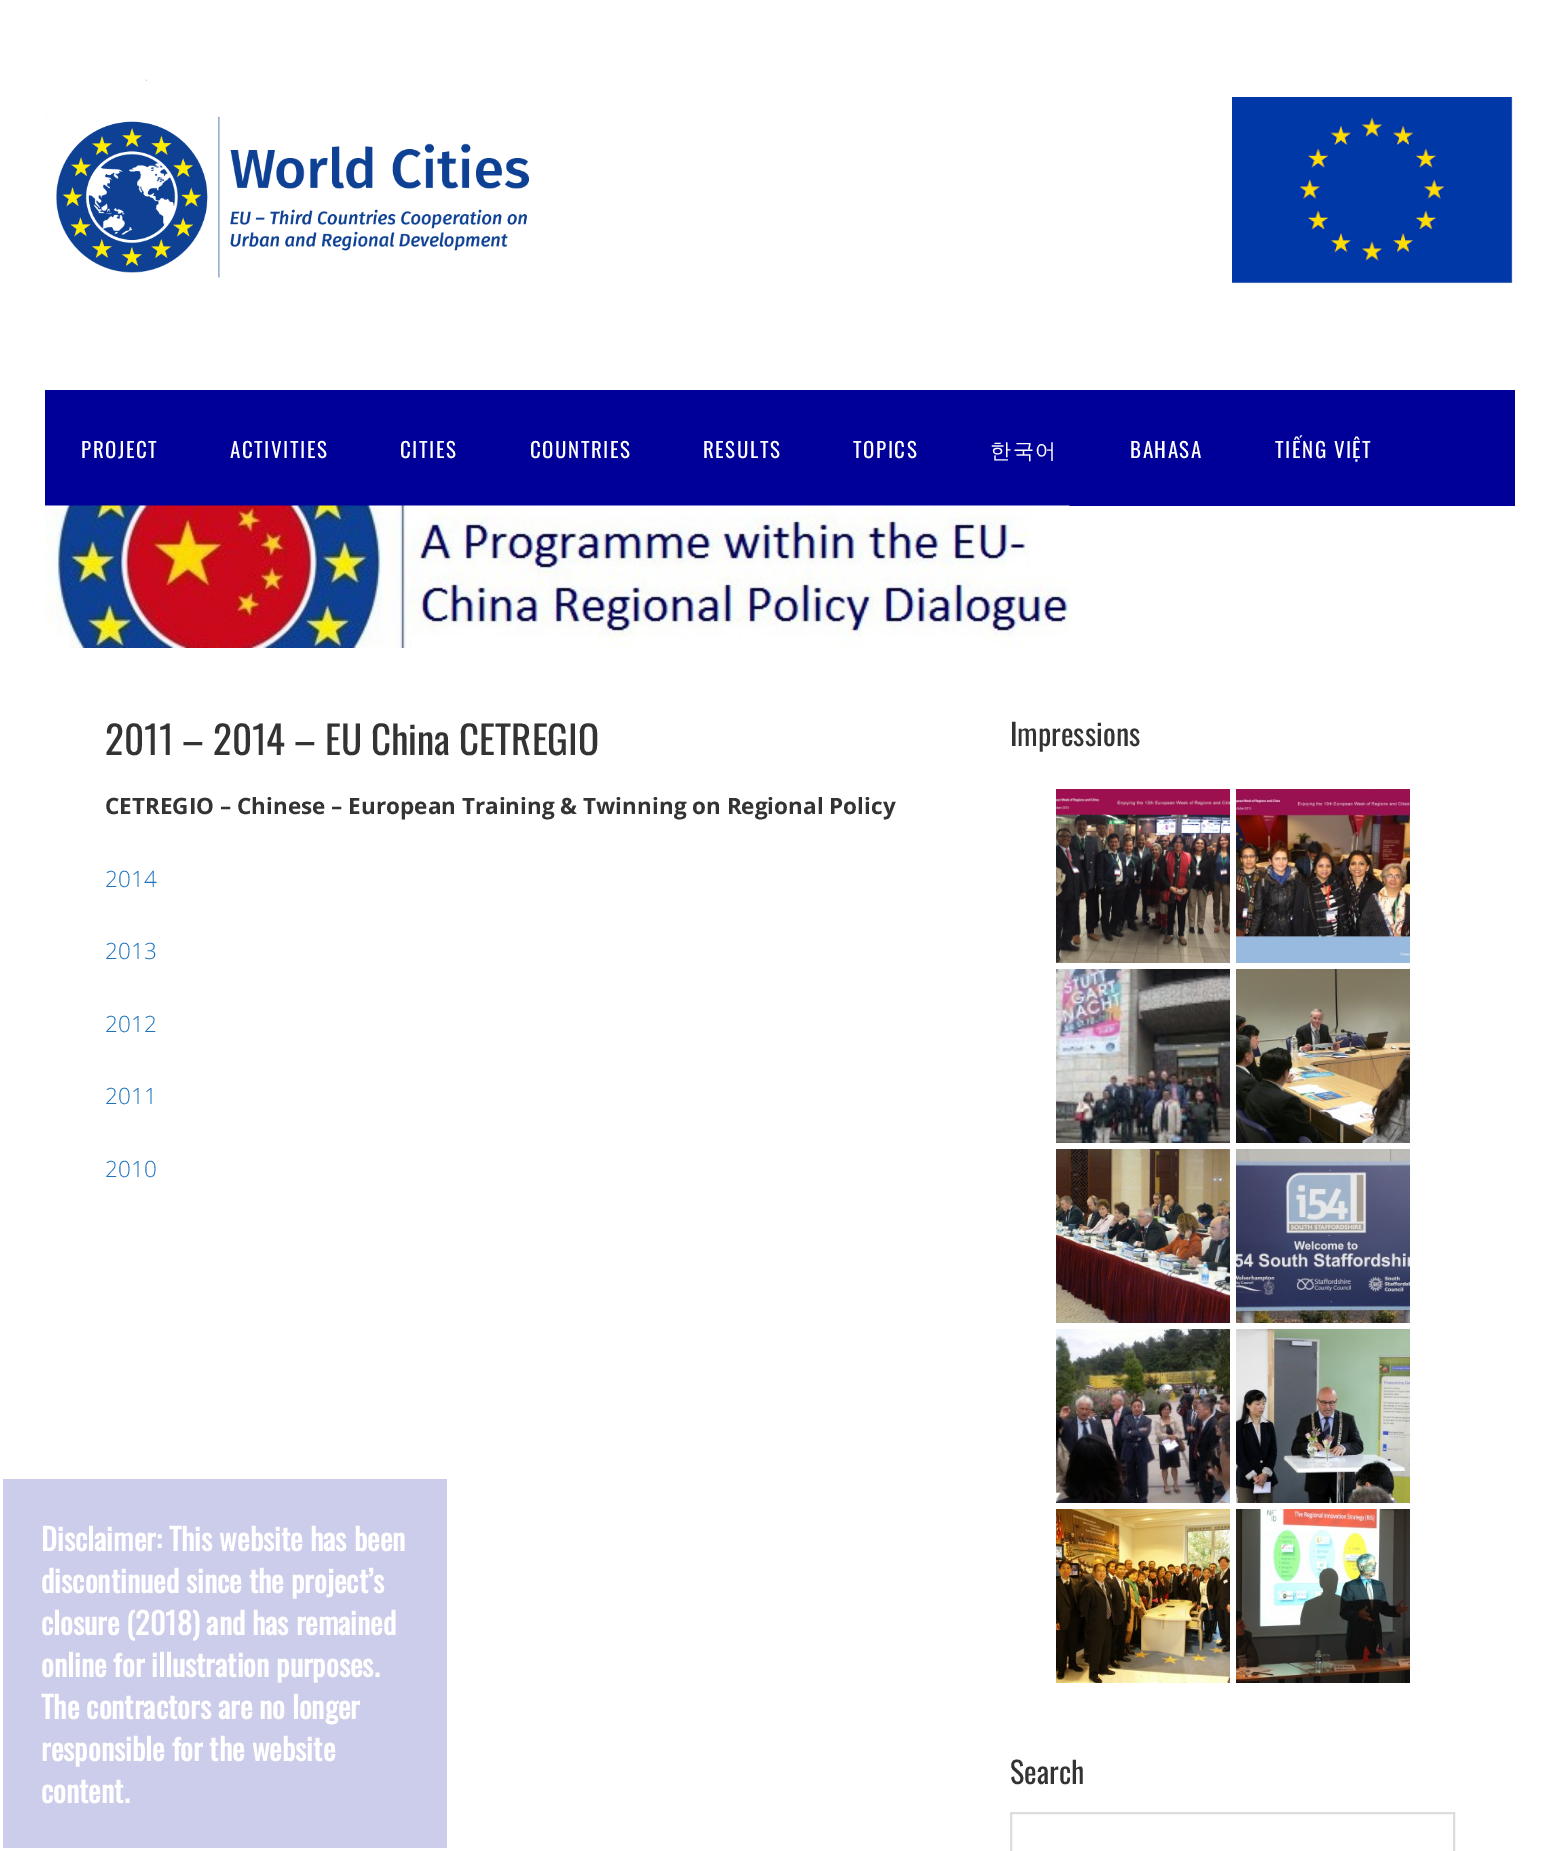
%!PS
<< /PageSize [1560 1851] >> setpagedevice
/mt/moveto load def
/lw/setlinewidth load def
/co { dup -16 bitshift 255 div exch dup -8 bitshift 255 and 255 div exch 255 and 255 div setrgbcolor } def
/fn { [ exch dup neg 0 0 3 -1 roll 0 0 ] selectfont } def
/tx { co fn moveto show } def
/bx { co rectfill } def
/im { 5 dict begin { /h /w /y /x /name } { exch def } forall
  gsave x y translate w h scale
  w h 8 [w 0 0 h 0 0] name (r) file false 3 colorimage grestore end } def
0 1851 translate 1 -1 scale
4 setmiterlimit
0 0 1560 1851 16#FFFFFF bx
(media/1.raw) 45 79 1468 205 im
45 390 1470 116 16#000099 bx
(media/2.raw) 45 505 1025 143 im
(media/3.raw) 1056 789 174 174 im
(media/4.raw) 1236 789 174 174 im
(media/5.raw) 1056 969 174 174 im
(media/6.raw) 1236 969 174 174 im
(media/7.raw) 1056 1149 174 174 im
(media/8.raw) 1236 1149 174 174 im
(media/9.raw) 1056 1329 174 174 im
(media/10.raw) 1236 1329 174 174 im
(media/11.raw) 1056 1509 174 174 im
(media/12.raw) 1236 1509 174 174 im
16#DDDDDD co
2 lw
1011 1813 443 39 rectstroke
3 1479 444 369 16#CCCCEB bx
/Oswald-Regular 21 fn
16#FFFFFF co
81 458 mt 1.5 0 (PROJECT) ashow
230 458 mt 1.5 0 (ACTIVITIES) ashow
400 458 mt 1.5 0 (CITIES) ashow
530 458 mt 1.5 0 (COUNTRIES) ashow
703 458 mt 1.5 0 (RESULTS) ashow
853 458 mt 1.5 0 (TOPICS) ashow
/WenQuanYiZenHei-Medium 21 fn
990 458 mt 1.5 0 (한국어) ashow
/Oswald-Regular 21 fn
1130 458 mt 1.5 0 (BAHASA) ashow
1275 458 mt 1.5 0 (TIẾNG VIỆT) ashow
(2011 – 2014 – EU China CETREGIO) 105 755 /Oswald-Regular 39 16#333333 tx
(CETREGIO – Chinese – European Training & Twinning on Regional Policy) 105 814 /OpenSans-Bold 22.5 16#333333 tx
(2014) 105 887 /OpenSans-Light 22.5 16#1E73BE tx
(2013) 105 959 /OpenSans-Light 22.5 16#1E73BE tx
(2012) 105 1032 /OpenSans-Light 22.5 16#1E73BE tx
(2011) 105 1104 /OpenSans-Light 22.5 16#1E73BE tx
(2010) 105 1177 /OpenSans-Light 22.5 16#1E73BE tx
(Impressions) 1010 746 /Oswald-Regular 30 16#333333 tx
(Search) 1010 1784 /Oswald-Regular 30 16#333333 tx
(Disclaimer: This website has been) 41 1551 /Oswald-Bold 30 16#FFFFFF tx
(discontinued since the project’s) 41 1593 /Oswald-Bold 30 16#FFFFFF tx
(closure \(2018\) and has remained) 41 1635 /Oswald-Bold 30 16#FFFFFF tx
(online for illustration purposes.) 41 1677 /Oswald-Bold 30 16#FFFFFF tx
(The contractors are no longer) 41 1719 /Oswald-Bold 30 16#FFFFFF tx
(responsible for the website) 41 1761 /Oswald-Bold 30 16#FFFFFF tx
(content.) 41 1803 /Oswald-Bold 30 16#FFFFFF tx
showpage
